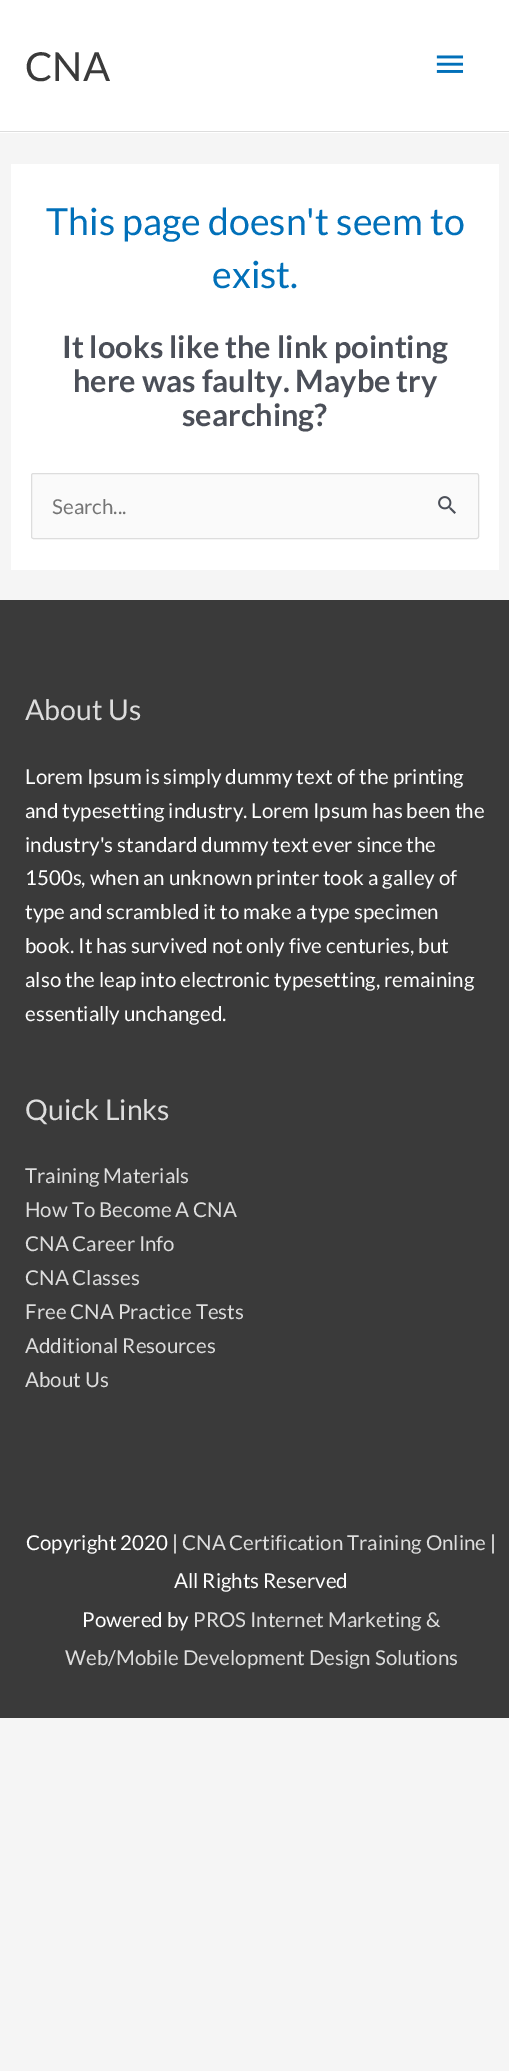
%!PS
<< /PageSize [509 2071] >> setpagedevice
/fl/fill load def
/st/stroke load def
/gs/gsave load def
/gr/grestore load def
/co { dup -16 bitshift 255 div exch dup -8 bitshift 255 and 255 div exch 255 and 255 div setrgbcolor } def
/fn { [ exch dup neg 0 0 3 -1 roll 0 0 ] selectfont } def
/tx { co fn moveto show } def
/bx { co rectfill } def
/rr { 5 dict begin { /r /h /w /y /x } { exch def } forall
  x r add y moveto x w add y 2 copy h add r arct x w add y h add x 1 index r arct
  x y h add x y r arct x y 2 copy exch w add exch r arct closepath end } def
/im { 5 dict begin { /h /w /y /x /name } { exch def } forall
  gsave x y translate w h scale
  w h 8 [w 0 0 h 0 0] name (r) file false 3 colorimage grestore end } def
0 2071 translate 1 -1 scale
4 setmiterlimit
0 0 509 2071 16#F5F5F5 bx
0 0 509 133 16#FFFFFF bx
0 131 509 1 16#DDDDDD bx
(media/1.raw) 436 55 28 18 im
11 164 488 406 16#FFFFFF bx
16#FAFAFA co
31.5 473.5 447 65 2 rr gs fl gr
16#DDDDDD co
st
(media/2.raw) 438 496 18 18 im
0 600 509 1118 16#3A3A3A bx
(CNA) 25 81 /Lato-Regular 40 16#3A3A3A tx
(This page doesn't seem to) 46 235 /Lato-Regular 37.5 16#0170B9 tx
(exist.) 212 288 /Lato-Regular 37.5 16#0170B9 tx
(It looks like the link pointing) 62 358 /Lato-Bold 30.75 16#4B4F58 tx
(here was faulty. Maybe try) 73 392 /Lato-Bold 30.75 16#4B4F58 tx
(searching?) 182 426 /Lato-Bold 30.75 16#4B4F58 tx
(Search...) 52 514 /Lato-Regular 20.5 16#757575 tx
(About Us) 25 720 /Lato-Regular 28.5 16#DDDDDD tx
(Lorem Ipsum is simply dummy text of the printing) 25 784 /Lato-Regular 20.5 16#FFFFFF tx
(and typesetting industry. Lorem Ipsum has been the) 25 818 /Lato-Regular 20.5 16#FFFFFF tx
(industry's standard dummy text ever since the) 25 852 /Lato-Regular 20.5 16#FFFFFF tx
(1500s, when an unknown printer took a galley of) 25 885 /Lato-Regular 20.5 16#FFFFFF tx
(type and scrambled it to make a type specimen) 25 919 /Lato-Regular 20.5 16#FFFFFF tx
(book. It has survived not only five centuries, but) 25 953 /Lato-Regular 20.5 16#FFFFFF tx
(also the leap into electronic typesetting, remaining) 25 987 /Lato-Regular 20.5 16#FFFFFF tx
(essentially unchanged.) 25 1021 /Lato-Regular 20.5 16#FFFFFF tx
(Quick Links) 25 1120 /Lato-Regular 28.5 16#DDDDDD tx
(Training Materials) 25 1183 /Lato-Regular 20.5 16#DDDDDD tx
(How To Become A CNA) 25 1217 /Lato-Regular 20.5 16#DDDDDD tx
(CNA Career Info) 25 1251 /Lato-Regular 20.5 16#DDDDDD tx
(CNA Classes) 25 1285 /Lato-Regular 20.5 16#DDDDDD tx
(Free CNA Practice Tests) 25 1319 /Lato-Regular 20.5 16#DDDDDD tx
(Additional Resources) 25 1353 /Lato-Regular 20.5 16#DDDDDD tx
(About Us) 25 1387 /Lato-Regular 20.5 16#DDDDDD tx
(Copyright 2020 |) 26 1550 /Lato-Regular 20.5 16#FFFFFF tx
(CNA Certification Training Online) 182 1550 /Lato-Regular 20.5 16#DDDDDD tx
(|) 490 1550 /Lato-Regular 20.5 16#FFFFFF tx
(All Rights Reserved) 174 1588 /Lato-Regular 20.5 16#FFFFFF tx
(Powered by) 82 1627 /Lato-Regular 20.5 16#FFFFFF tx
(PROS Internet Marketing &) 193 1627 /Lato-Regular 20.5 16#DDDDDD tx
(Web/Mobile Development Design Solutions) 65 1665 /Lato-Regular 20.5 16#DDDDDD tx
showpage
